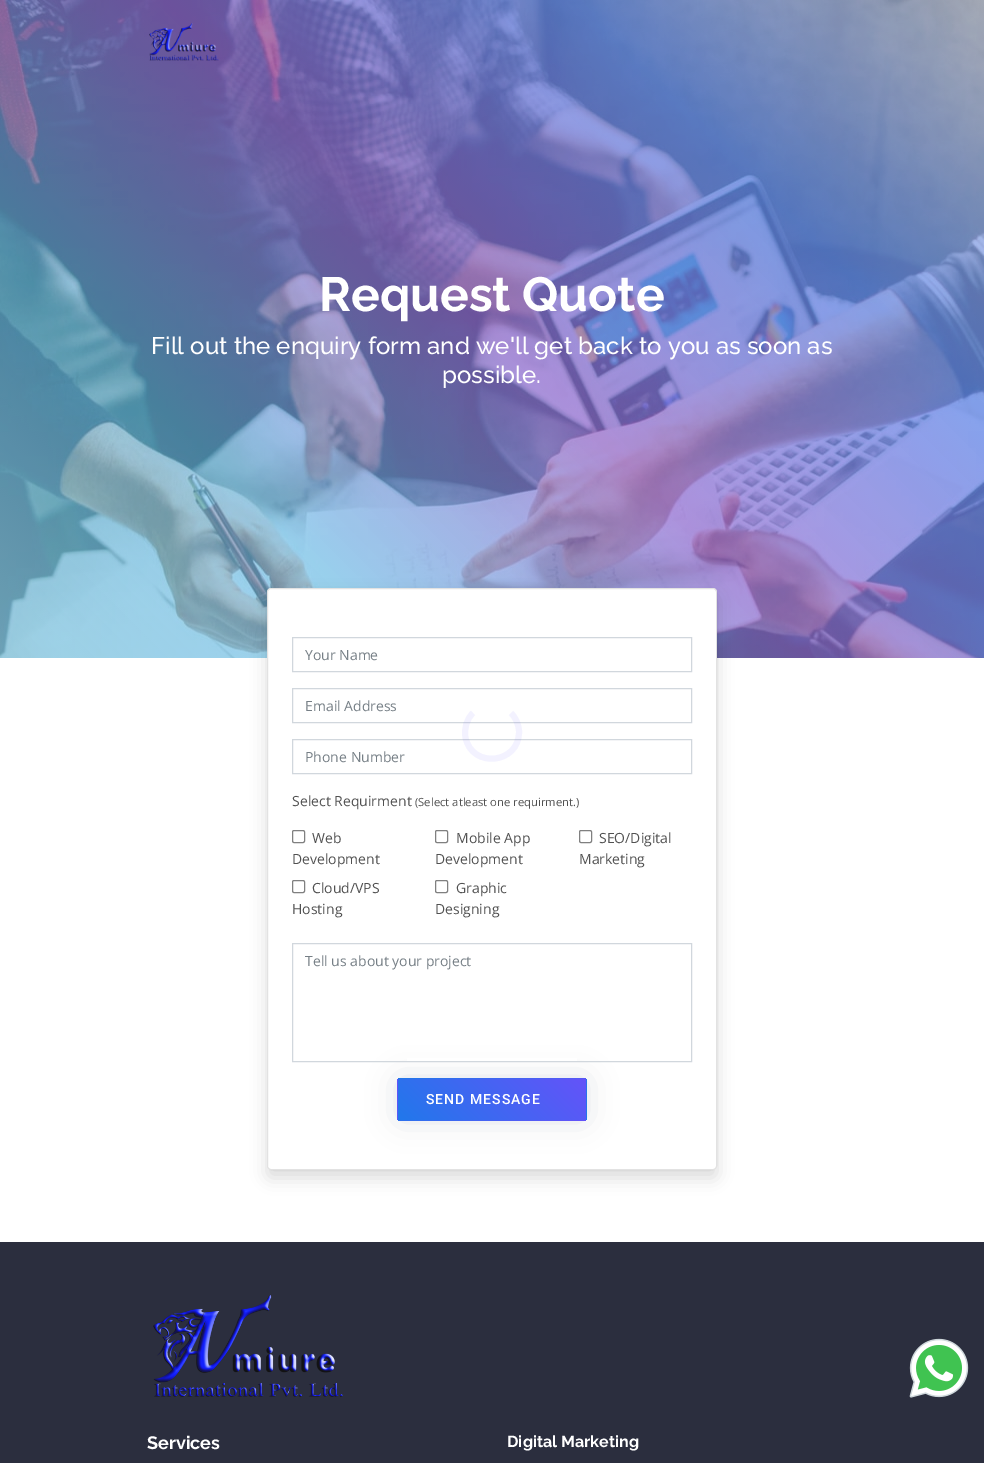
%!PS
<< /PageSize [984 1463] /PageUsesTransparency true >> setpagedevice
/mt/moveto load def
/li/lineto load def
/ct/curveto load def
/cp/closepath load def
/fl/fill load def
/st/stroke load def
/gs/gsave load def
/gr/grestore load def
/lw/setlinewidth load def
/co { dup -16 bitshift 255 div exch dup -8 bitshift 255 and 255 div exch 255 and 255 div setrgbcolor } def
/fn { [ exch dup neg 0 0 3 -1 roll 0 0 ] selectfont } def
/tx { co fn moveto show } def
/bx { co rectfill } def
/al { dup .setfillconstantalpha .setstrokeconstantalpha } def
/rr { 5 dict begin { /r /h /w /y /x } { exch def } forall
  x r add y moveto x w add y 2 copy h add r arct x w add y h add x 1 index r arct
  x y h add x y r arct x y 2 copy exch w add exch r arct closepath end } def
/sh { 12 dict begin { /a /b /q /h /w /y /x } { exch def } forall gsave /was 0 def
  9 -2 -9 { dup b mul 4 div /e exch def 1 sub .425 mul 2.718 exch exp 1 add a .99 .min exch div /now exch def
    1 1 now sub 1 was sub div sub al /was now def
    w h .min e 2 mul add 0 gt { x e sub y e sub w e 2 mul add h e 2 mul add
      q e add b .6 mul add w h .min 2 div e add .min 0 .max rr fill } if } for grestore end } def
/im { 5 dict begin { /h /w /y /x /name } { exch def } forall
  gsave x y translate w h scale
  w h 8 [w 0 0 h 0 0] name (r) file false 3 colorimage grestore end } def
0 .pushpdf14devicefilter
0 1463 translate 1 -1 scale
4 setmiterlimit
0 0 984 1463 16#FFFFFF bx
(media/2.raw) 0 0 984 658 im
(media/1.raw) 149 23 70 38 im
16#121212 co
267 596 450 582 4 8 .15 sh
16#FFFFFF co
267 588 450 582 4 rr fl
0.12 al
16#121212 co
267.5 588.5 449 581 3.5 rr st
1 al
16#D1D7DD co
292.5 637.5 399 34 rectstroke
292.5 688.5 399 34 rectstroke
292.5 739.5 399 34 rectstroke
16#808080 co
292.5 830.5 12 12 1.5 rr st
435.5 830.5 12 12 1.5 rr st
579.5 830.5 12 12 1.5 rr st
292.5 880.5 12 12 1.5 rr st
435.5 880.5 12 12 1.5 rr st
16#8891A8 co
397 1078 190 43 4 15 .25 sh
407 1058 170 3 16#FFFFFF bx
16#D1D7DD co
292.5 943.5 399 118 rectstroke
gs
397 1078 190 43 4 rr clip newpath
gs 398 1078 mt 586 1078 li 586 1079 li 398 1079 li cp clip newpath
<< /ShadingType 2 /ColorSpace /DeviceRGB /Coords [435 1116 549 1001] /Extend [true true] /Function << /FunctionType 2 /Domain [0 1] /C0 [.129 .471 .922] /C1 [.392 .325 .976] /N 1 >> >> shfill gr
gs 397 1079 mt 398 1079 li 398 1120 li 397 1120 li cp clip newpath
<< /ShadingType 2 /ColorSpace /DeviceRGB /Coords [247 1157 361 1042] /Extend [true true] /Function << /FunctionType 2 /Domain [0 1] /C0 [.129 .471 .922] /C1 [.392 .325 .976] /N 1 >> >> shfill gr
gs 398 1079 mt 586 1079 li 586 1120 li 398 1120 li cp clip newpath
<< /ShadingType 2 /ColorSpace /DeviceRGB /Coords [435 1157 549 1042] /Extend [true true] /Function << /FunctionType 2 /Domain [0 1] /C0 [.129 .471 .922] /C1 [.392 .325 .976] /N 1 >> >> shfill gr
gs 586 1079 mt 587 1079 li 587 1120 li 586 1120 li cp clip newpath
<< /ShadingType 2 /ColorSpace /DeviceRGB /Coords [623 1157 737 1042] /Extend [true true] /Function << /FunctionType 2 /Domain [0 1] /C0 [.129 .471 .922] /C1 [.392 .325 .976] /N 1 >> >> shfill gr
gs 398 1120 mt 586 1120 li 586 1121 li 398 1121 li cp clip newpath
<< /ShadingType 2 /ColorSpace /DeviceRGB /Coords [435 1198 549 1083] /Extend [true true] /Function << /FunctionType 2 /Domain [0 1] /C0 [.129 .471 .922] /C1 [.392 .325 .976] /N 1 >> >> shfill gr
gr
0.07 al
16#5846F9 co
6 lw
511 713 mt 516 718 519 725 519 732 ct 519 764 472 769 465.5 737.5 ct 464 728.5 466.5 719 473 713 ct st
1 al
0 1242 984 221 16#2B2E3E bx
(media/3.raw) 909 1338 60 60 im
(media/4.raw) 153 1295 190 102 im
(Request Quote) 319 311 /Raleway-Bold 48 16#FFFFFF tx
(Fill out the enquiry form and we'll get back to you as soon as) 151 354 /Raleway-Medium 24 16#FFFFFF tx
(possible.) 442 383 /Raleway-Medium 24 16#FFFFFF tx
(Your Name) 305 660 /OpenSans-Regular 14 16#767F86 tx
(Email Address) 305 711 /OpenSans-Regular 14 16#767F86 tx
(Phone Number) 305 762 /OpenSans-Regular 14 16#767F86 tx
(Select Requirment) 292 806 /OpenSans-Regular 14 16#515151 tx
(\(Select atleast one requirment.\)) 415 806 /OpenSans-Regular 11.25 16#515151 tx
(Web) 312 843 /OpenSans-Regular 14 16#515151 tx
(Development) 292 864 /OpenSans-Regular 14 16#515151 tx
(Mobile App) 456 843 /OpenSans-Regular 14 16#515151 tx
(Development) 435 864 /OpenSans-Regular 14 16#515151 tx
(SEO/Digital) 599 843 /OpenSans-Regular 14 16#515151 tx
(Marketing) 579 864 /OpenSans-Regular 14 16#515151 tx
(Cloud/VPS) 312 893 /OpenSans-Regular 14 16#515151 tx
(Hosting) 292 914 /OpenSans-Regular 14 16#515151 tx
(Graphic) 456 893 /OpenSans-Regular 14 16#515151 tx
(Designing) 435 914 /OpenSans-Regular 14 16#515151 tx
(Tell us about your project) 305 966 /OpenSans-Regular 14 16#767F86 tx
/Roboto-Medium 14 fn
16#FFFFFF co
426 1104 mt 1 0 (SEND MESSAGE) ashow
(Services) 147 1449 /Raleway-Bold 18 16#FFFFFF tx
(Digital Marketing) 507 1447 /Raleway-Bold 16 16#FFFFFF tx
.poppdf14devicefilter showpage
